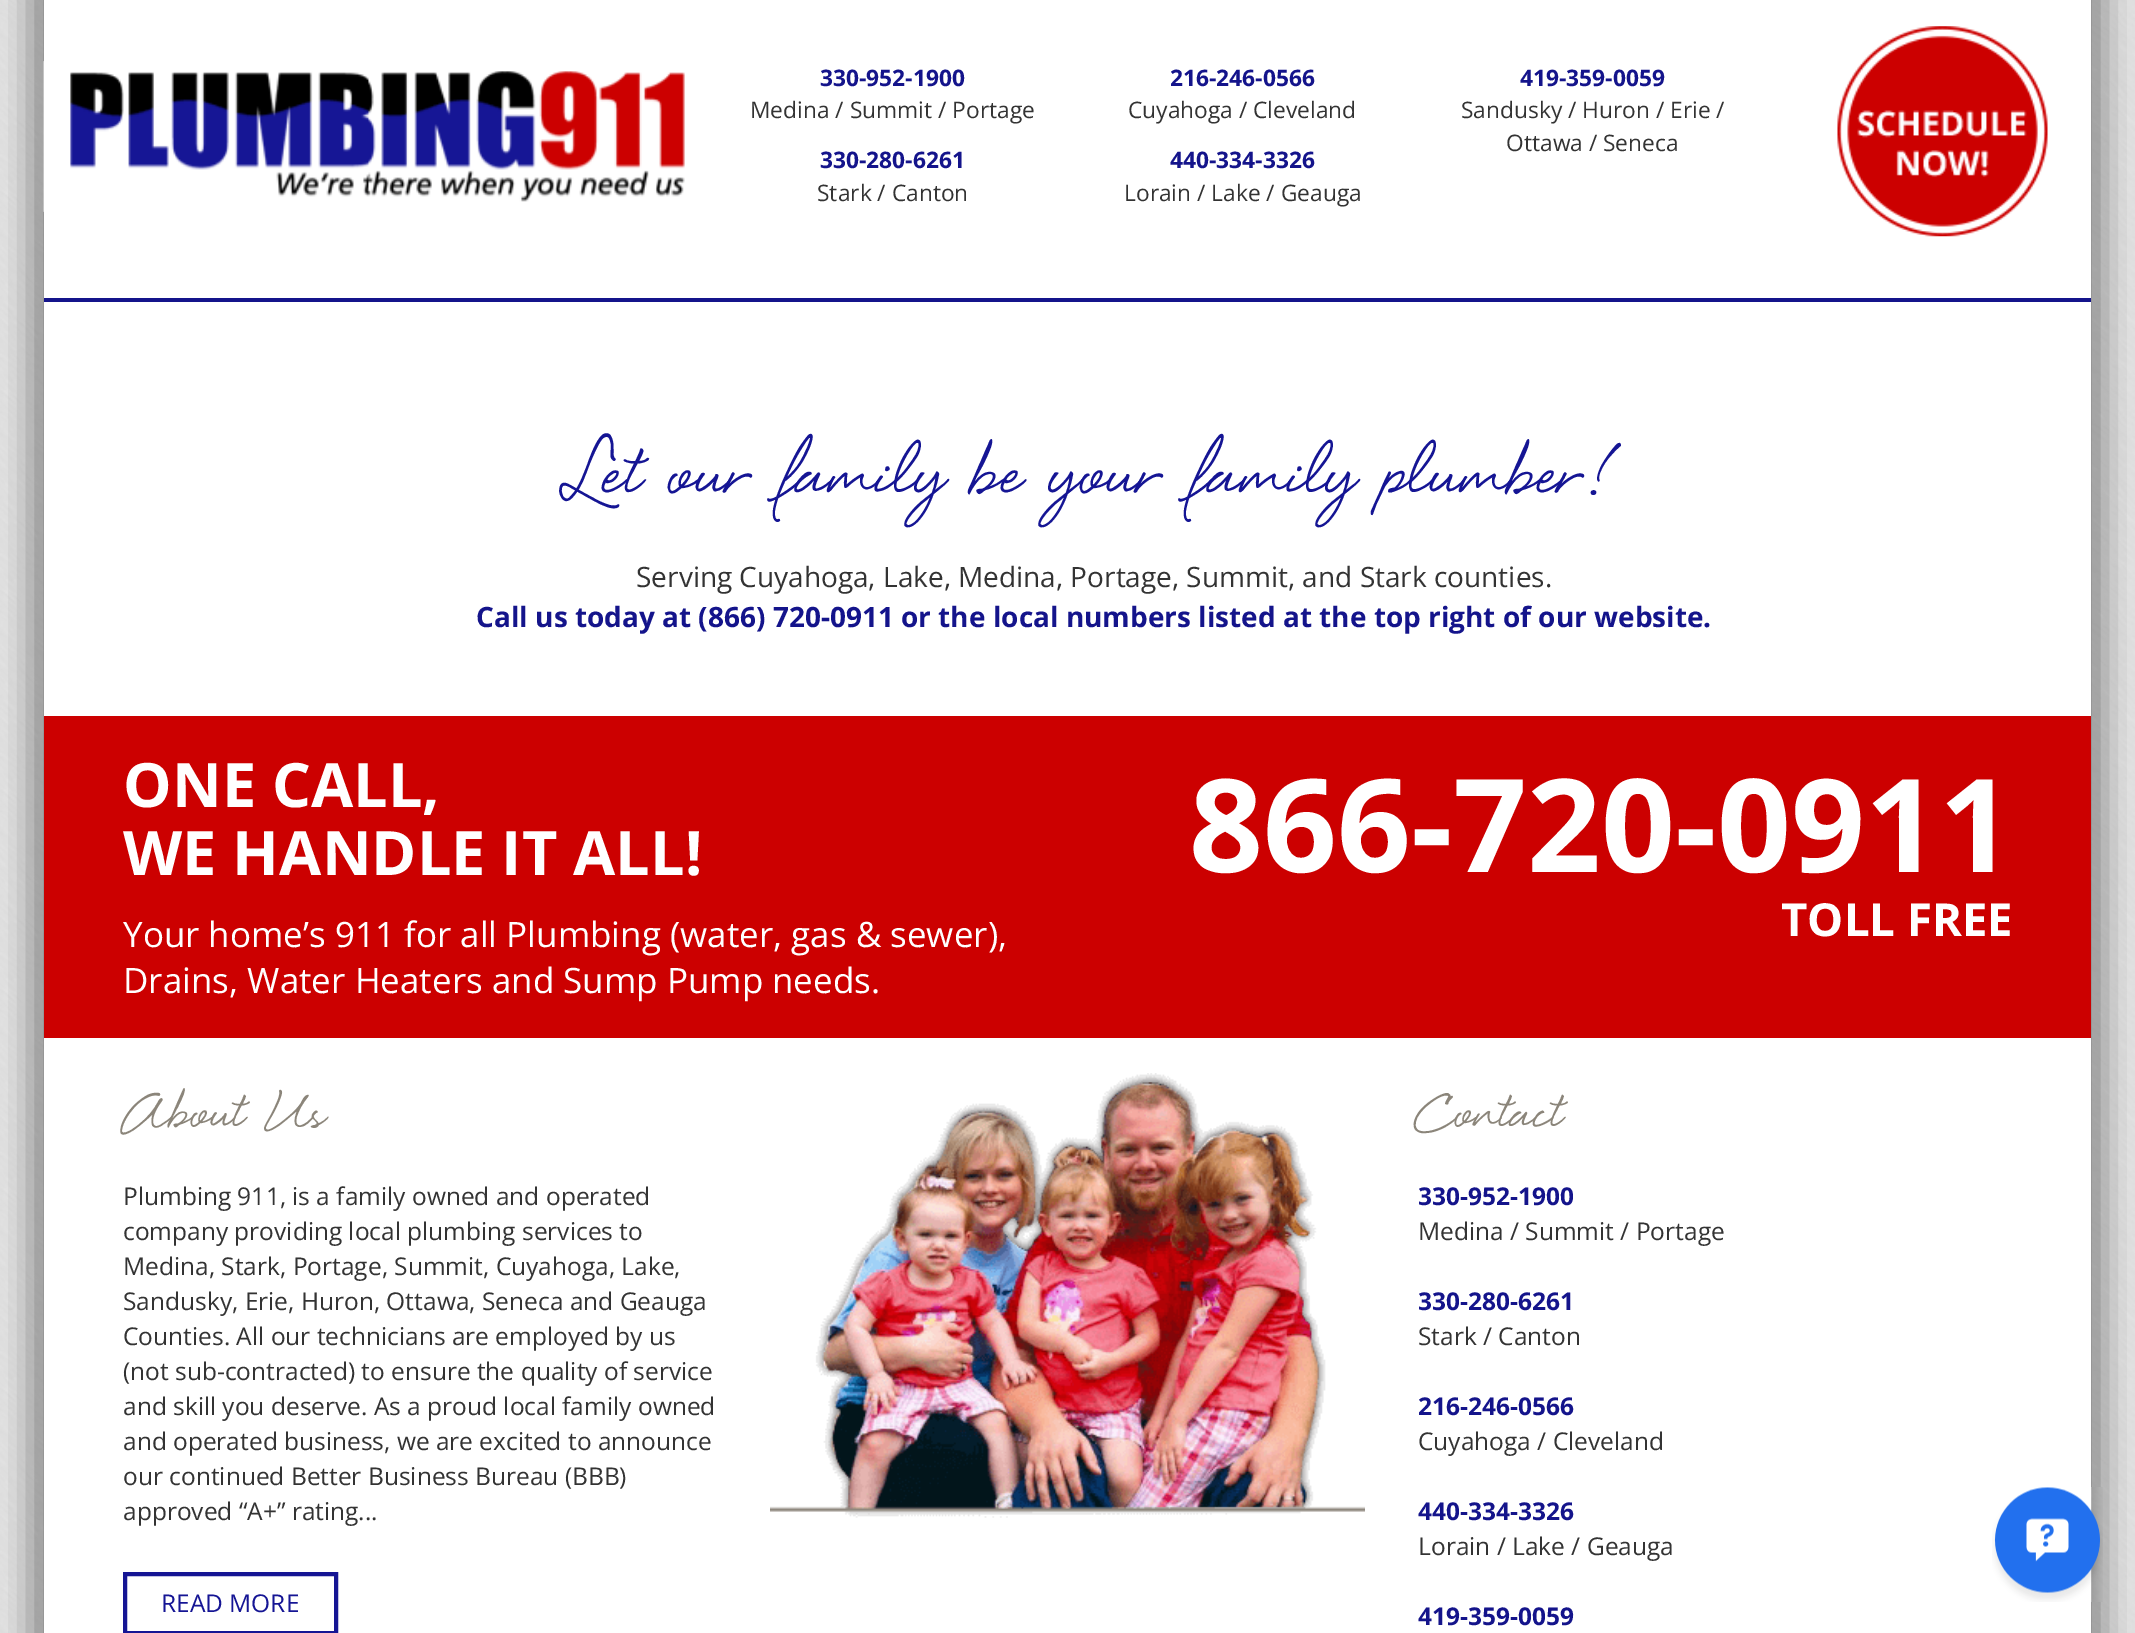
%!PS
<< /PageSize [2135 1633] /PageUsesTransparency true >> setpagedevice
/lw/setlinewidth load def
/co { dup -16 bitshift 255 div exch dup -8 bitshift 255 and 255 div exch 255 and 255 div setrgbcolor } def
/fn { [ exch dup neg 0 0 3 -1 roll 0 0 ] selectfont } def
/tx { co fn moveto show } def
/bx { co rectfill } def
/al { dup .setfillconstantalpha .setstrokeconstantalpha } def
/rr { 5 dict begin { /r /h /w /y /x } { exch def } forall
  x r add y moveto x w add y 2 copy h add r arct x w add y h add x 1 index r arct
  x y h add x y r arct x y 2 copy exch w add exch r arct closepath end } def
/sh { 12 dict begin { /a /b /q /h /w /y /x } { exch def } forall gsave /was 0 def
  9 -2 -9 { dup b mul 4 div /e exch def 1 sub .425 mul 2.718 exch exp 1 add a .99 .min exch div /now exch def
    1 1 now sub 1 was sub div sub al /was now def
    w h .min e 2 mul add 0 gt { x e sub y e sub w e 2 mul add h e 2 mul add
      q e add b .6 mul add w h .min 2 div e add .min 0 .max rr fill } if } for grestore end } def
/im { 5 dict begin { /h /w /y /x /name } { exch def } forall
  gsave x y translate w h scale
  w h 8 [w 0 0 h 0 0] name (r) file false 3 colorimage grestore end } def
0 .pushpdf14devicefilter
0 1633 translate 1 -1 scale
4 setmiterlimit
0 0 2135 1633 16#FFFFFF bx
(media/1.raw) 0 0 2135 1633 im
16#000000 co
30 -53 2075 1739 0 17.5 .4 sh
44 302 2047 1331 16#FFFFFF bx
44 0 2047 298 16#FFFFFF bx
44 298 2047 4 16#14148B bx
(media/2.raw) 43 61 642 151 im
(media/3.raw) 1837 26 211 211 im
44 716 2047 322 16#CC0000 bx
16#151594 co
4 lw
125 1574 211 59 rectstroke
(media/4.raw) 770 1073 595 445 im
(media/5.raw) 1992 1487 111 115 im
(330-952-1900) 820 86 /OpenSans-Bold 22.75 16#14148B tx
(Medina / Summit / Portage) 750 118 /OpenSans-Regular 22.75 16#333333 tx
(330-280-6261) 820 168 /OpenSans-Bold 22.75 16#14148B tx
(Stark / Canton) 817 201 /OpenSans-Regular 22.75 16#333333 tx
(216-246-0566) 1170 86 /OpenSans-Bold 22.75 16#14148B tx
(Cuyahoga / Cleveland) 1128 118 /OpenSans-Regular 22.75 16#333333 tx
(440-334-3326) 1170 168 /OpenSans-Bold 22.75 16#14148B tx
(Lorain / Lake / Geauga) 1124 201 /OpenSans-Regular 22.75 16#333333 tx
(419-359-0059) 1520 86 /OpenSans-Bold 22.75 16#14148B tx
(Sandusky / Huron / Erie /) 1461 118 /OpenSans-Regular 22.75 16#333333 tx
(Ottawa / Seneca) 1506 151 /OpenSans-Regular 22.75 16#333333 tx
(Let our family be your family plumber!) 564 509 /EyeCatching-Regular 122.5 16#151594 tx
(Serving Cuyahoga, Lake, Medina, Portage, Summit, and Stark counties.) 636 587 /OpenSans-Regular 28 16#333333 tx
(Call us today at \(866\) 720-0911 or the local numbers listed at the top right of our website.) 476 627 /OpenSans-Bold 28 16#14148B tx
(ONE CALL,) 123 807 /OpenSans-Bold 61.25 16#FFFFFF tx
(WE HANDLE IT ALL!) 123 875 /OpenSans-Bold 61.25 16#FFFFFF tx
(Your home’s 911 for all Plumbing \(water, gas & sewer\),) 123 947 /OpenSans-Regular 35 16#FFFFFF tx
(Drains, Water Heaters and Sump Pump needs.) 123 993 /OpenSans-Regular 35 16#FFFFFF tx
(866-720-0911) 1189 872 /OpenSans-Bold 129.5 16#FFFFFF tx
(TOLL FREE) 1781 936 /OpenSans-Bold 45.5 16#FFFFFF tx
(About Us) 123 1138 /EyeCatching-Regular 87.5 16#8B857A tx
(Plumbing 911, is a family owned and operated) 123 1205 /OpenSans-Regular 24.5 16#333333 tx
(company providing local plumbing services to) 123 1240 /OpenSans-Regular 24.5 16#333333 tx
(Medina, Stark, Portage, Summit, Cuyahoga, Lake,) 123 1275 /OpenSans-Regular 24.5 16#333333 tx
(Sandusky, Erie, Huron, Ottawa, Seneca and Geauga) 123 1310 /OpenSans-Regular 24.5 16#333333 tx
(Counties. All our technicians are employed by us) 123 1345 /OpenSans-Regular 24.5 16#333333 tx
(\(not sub-contracted\) to ensure the quality of service) 123 1380 /OpenSans-Regular 24.5 16#333333 tx
(and skill you deserve. As a proud local family owned) 123 1415 /OpenSans-Regular 24.5 16#333333 tx
(and operated business, we are excited to announce) 123 1450 /OpenSans-Regular 24.5 16#333333 tx
(our continued Better Business Bureau \(BBB\)) 123 1485 /OpenSans-Regular 24.5 16#333333 tx
(approved “A+” rating...) 123 1520 /OpenSans-Regular 24.5 16#333333 tx
(READ MORE) 161 1612 /OpenSans-Regular 24.5 16#151594 tx
(Contact) 1418 1138 /EyeCatching-Regular 87.5 16#8B857A tx
(330-952-1900) 1418 1205 /OpenSans-Bold 24.5 16#14148B tx
(Medina / Summit / Portage) 1418 1240 /OpenSans-Regular 24.5 16#333333 tx
(330-280-6261) 1418 1310 /OpenSans-Bold 24.5 16#14148B tx
(Stark / Canton) 1418 1345 /OpenSans-Regular 24.5 16#333333 tx
(216-246-0566) 1418 1415 /OpenSans-Bold 24.5 16#14148B tx
(Cuyahoga / Cleveland) 1418 1450 /OpenSans-Regular 24.5 16#333333 tx
(440-334-3326) 1418 1520 /OpenSans-Bold 24.5 16#14148B tx
(Lorain / Lake / Geauga) 1418 1555 /OpenSans-Regular 24.5 16#333333 tx
(419-359-0059) 1418 1625 /OpenSans-Bold 24.5 16#14148B tx
.poppdf14devicefilter showpage
